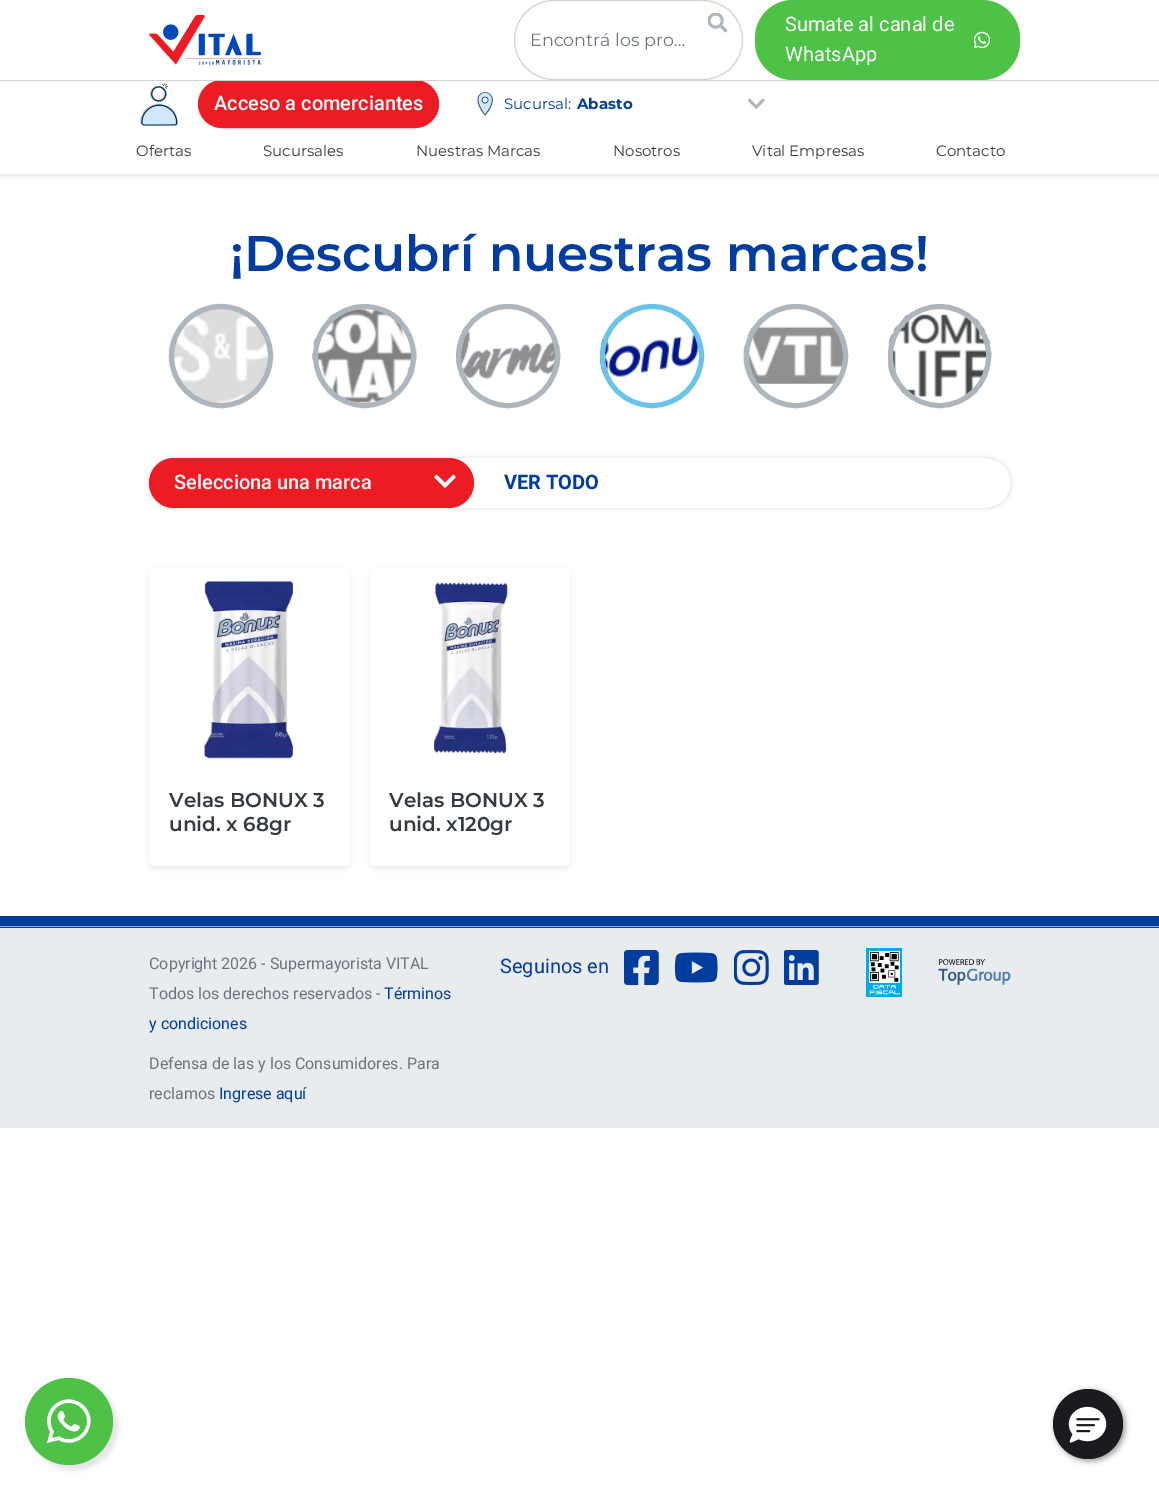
%!PS
<< /PageSize [1159 1490] /PageUsesTransparency true >> setpagedevice
/mt/moveto load def
/li/lineto load def
/ct/curveto load def
/cp/closepath load def
/fl/fill load def
/st/stroke load def
/gs/gsave load def
/gr/grestore load def
/lw/setlinewidth load def
/co { dup -16 bitshift 255 div exch dup -8 bitshift 255 and 255 div exch 255 and 255 div setrgbcolor } def
/fn { [ exch dup neg 0 0 3 -1 roll 0 0 ] selectfont } def
/tx { co fn moveto show } def
/bx { co rectfill } def
/al { dup .setfillconstantalpha .setstrokeconstantalpha } def
/ci { newpath 0 360 arc closepath } def
/rr { 5 dict begin { /r /h /w /y /x } { exch def } forall
  x r add y moveto x w add y 2 copy h add r arct x w add y h add x 1 index r arct
  x y h add x y r arct x y 2 copy exch w add exch r arct closepath end } def
/sh { 12 dict begin { /a /b /q /h /w /y /x } { exch def } forall gsave /was 0 def
  9 -2 -9 { dup b mul 4 div /e exch def 1 sub .425 mul 2.718 exch exp 1 add a .99 .min exch div /now exch def
    1 1 now sub 1 was sub div sub al /was now def
    w h .min e 2 mul add 0 gt { x e sub y e sub w e 2 mul add h e 2 mul add
      q e add b .6 mul add w h .min 2 div e add .min 0 .max rr fill } if } for grestore end } def
/im { 5 dict begin { /h /w /y /x /name } { exch def } forall
  gsave x y translate w h scale
  w h 8 [w 0 0 h 0 0] name (r) file false 3 colorimage grestore end } def
0 .pushpdf14devicefilter
0 1490 translate 1 -1 scale
4 setmiterlimit
0 0 1159 1490 16#FFFFFF bx
16#000000 co
0 3 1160 173 0 2.5 .07 sh
0 0 1159 174 16#FFFFFF bx
(media/1.raw) 149 15 112 50 im
16#CED4DA co
514.5 .5 228 79 39.5 rr st
(media/2.raw) 708 13 20 20 im
16#4DC247 co
755 0 265 80 38 rr fl
(media/3.raw) 974 31 16 18 im
(media/4.raw) 140 83 38 43 im
16#ED1C24 co
198.5 80.5 240 47 23.5 rr gs fl gr
st
(media/5.raw) 476 92 17 24 im
(media/6.raw) 748 98 17 11 im
0 80 1159 1 16#CED4DA bx
(media/7.raw) 168 303 105 105 im
16#ADB5BD co
5 lw
221 356 49.5 ci st
(media/8.raw) 312 307 105 97 im
315.5 306.5 98 99 49 rr st
(media/9.raw) 456 326 105 54 im
508 356 49.5 ci st
(media/10.raw) 600 333 104 44 im
16#6BC4E8 co
652 356 49.5 ci st
(media/11.raw) 743 326 105 58 im
16#ADB5BD co
796 356 49.5 ci st
(media/12.raw) 888 314 104 83 im
890.5 306.5 98 99 49 rr st
gs
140 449 mt 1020 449 li 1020 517 li 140 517 li cp 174 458 mt 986 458 li 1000 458 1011 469 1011 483 ct 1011 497 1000 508 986 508 ct 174 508 li 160 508 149 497 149 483 ct 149 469 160 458 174 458 ct cp eoclip newpath
16#000000 co
149 458 862 50 25 2.5 .12 sh
gr
16#ED1C24 co
149 458 325 50 25 rr fl
(media/13.raw) 434 474 22 14 im
16#000000 co
149 570 201 299 6 2.5 .07 sh
16#FFFFFF co
149 568 201 298 6 rr fl
(media/14.raw) 201 581 95 180 im
16#000000 co
370 570 200 299 6 2.5 .07 sh
16#FFFFFF co
370 568 200 298 6 rr fl
(media/15.raw) 433 580 77 175 im
0 916 1159 12 16#003D9E bx
0 926 1159 1 16#92B3D9 bx
0 928 1159 200 16#E9ECEF bx
(media/16.raw) 624 950 35 35 im
(media/17.raw) 674 952 44 31 im
(media/18.raw) 734 950 35 35 im
(media/19.raw) 784 950 35 35 im
(media/20.raw) 866 948 36 49 im
(media/21.raw) 938 959 73 26 im
16#000000 co
30 1383 88 87 43.5 2.5 .1 sh
16#4DC247 co
25 1378 88 87 43.5 rr fl
(media/22.raw) 47 1399 44 44 im
16#2D2D2D co
1055 1391 70 70 35 3 .5 sh
16#1A1B1E co
1088 1424 35 ci fl
(media/23.raw) 1068 1406 39 37 im
(Encontrá los pro…) 530 46 /Montserrat-Regular 17.5 16#6C757D tx
(Sumate al canal de) 785 31 /Roboto-Regular 20 16#FFFFFF tx
(WhatsApp) 785 61 /Roboto-Regular 20 16#FFFFFF tx
(Acceso a comerciantes) 214 110 /Roboto-Medium 20 16#FFFFFF tx
(Sucursal:) 504 109 /Montserrat-Regular 15 16#003D9E tx
(Abasto) 577 109 /Montserrat-Bold 15 16#003D9E tx
(Ofertas) 136 156 /Montserrat-Regular 15 16#343A40 tx
(Sucursales) 263 156 /Montserrat-Regular 15 16#343A40 tx
(Nuestras Marcas) 416 156 /Montserrat-Regular 15 16#343A40 tx
(Nosotros) 613 156 /Montserrat-Regular 15 16#343A40 tx
(Vital Empresas) 752 156 /Montserrat-Regular 15 16#343A40 tx
(Contacto) 936 156 /Montserrat-Regular 15 16#343A40 tx
(¡Descubrí nuestras marcas!) 230 271 /Montserrat-SemiBold 50 16#003D9E tx
(Selecciona una marca) 174 489 /Roboto-Medium 20 16#FFFFFF tx
(VER TODO) 504 489 /Roboto-Bold 20 16#003D9E tx
(Velas BONUX 3) 169 807 /Montserrat-SemiBold 20 16#343A40 tx
(unid. x 68gr) 169 831 /Montserrat-SemiBold 20 16#343A40 tx
(Velas BONUX 3) 389 807 /Montserrat-SemiBold 20 16#343A40 tx
(unid. x120gr) 389 831 /Montserrat-SemiBold 20 16#343A40 tx
(Copyright 2026 - Supermayorista VITAL) 149 969 /Roboto-Regular 16 16#6C757D tx
(Todos los derechos reservados -) 149 999 /Roboto-Regular 16 16#6C757D tx
(Términos) 384 999 /Roboto-Regular 16 16#003D9E tx
(y condiciones) 149 1029 /Roboto-Regular 16 16#003D9E tx
(Defensa de las y los Consumidores. Para) 149 1069 /Roboto-Regular 16 16#6C757D tx
(reclamos) 149 1099 /Roboto-Regular 16 16#6C757D tx
(Ingrese aquí) 219 1099 /Roboto-Regular 16 16#003D9E tx
(Seguinos en) 500 973 /Roboto-Regular 20 16#003D9E tx
.poppdf14devicefilter showpage
